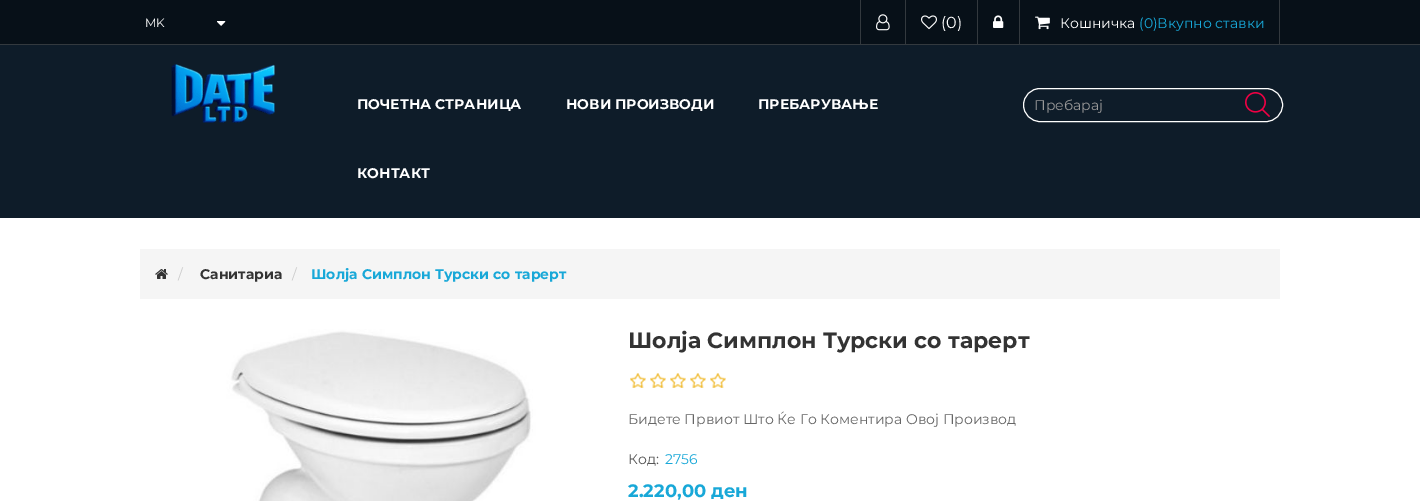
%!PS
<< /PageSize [1420 501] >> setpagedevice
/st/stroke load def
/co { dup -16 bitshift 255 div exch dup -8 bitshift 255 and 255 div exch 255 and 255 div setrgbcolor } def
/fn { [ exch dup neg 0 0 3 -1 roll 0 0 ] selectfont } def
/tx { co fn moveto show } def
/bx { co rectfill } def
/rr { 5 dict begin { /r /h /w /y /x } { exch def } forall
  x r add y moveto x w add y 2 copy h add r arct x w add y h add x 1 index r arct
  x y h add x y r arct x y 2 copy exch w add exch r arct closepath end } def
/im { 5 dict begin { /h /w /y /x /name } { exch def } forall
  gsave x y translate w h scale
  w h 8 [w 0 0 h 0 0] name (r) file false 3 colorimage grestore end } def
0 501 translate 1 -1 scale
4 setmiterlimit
0 0 1420 501 16#FFFFFF bx
0 0 1420 44 16#071018 bx
0 44 1420 1 16#33393E bx
(media/1.raw) 217 21 9 5 im
905 0 1 46 16#33393E bx
860 0 1 46 16#33393E bx
(media/2.raw) 876 14 14 17 im
977 0 1 46 16#33393E bx
(media/3.raw) 921 15 16 15 im
1019 0 1 46 16#33393E bx
(media/4.raw) 993 15 11 13 im
1279 0 1 46 16#33393E bx
(media/5.raw) 1035 16 15 14 im
0 45 1420 173 16#0E1C29 bx
(media/6.raw) 171 64 104 59 im
16#FFFFFF co
1023.5 88.5 259 33 16.5 rr st
(media/7.raw) 1245 92 25 25 im
140 249 1140 50 16#F5F5F5 bx
(media/8.raw) 155 269 13 10 im
(media/9.raw) 140 329 458 172 im
(media/10.raw) 630 373 96 15 im
(MK) 145 27 /Montserrat-Regular 12 16#FFFFFF tx
(\(0\)) 941 28 /Montserrat-Regular 16 16#FFFFFF tx
(Кошничка) 1060 28 /Montserrat-Regular 14 16#FFFFFF tx
(\(0\)Вкупно ставки) 1139 28 /Montserrat-Regular 14 16#18A8D8 tx
(ПОЧЕТНА СТРАНИЦА) 357 109 /Montserrat-Bold 14 16#FFFFFF tx
(НОВИ ПРОИЗВОДИ) 566 109 /Montserrat-Bold 14 16#FFFFFF tx
(ПРЕБАРУВАЊЕ) 758 109 /Montserrat-Bold 14 16#FFFFFF tx
(КОНТАКТ) 357 178 /Montserrat-Bold 14 16#FFFFFF tx
(Пребарај) 1034 110 /Montserrat-Regular 14 16#999999 tx
(/) 178 279 /Montserrat-Regular 14 16#CCCCCC tx
(Санитариа) 200 279 /Montserrat-Bold 14 16#333333 tx
(/) 292 279 /Montserrat-Regular 14 16#CCCCCC tx
(Шолја Симплон Турски со тарерт) 311 279 /Montserrat-Bold 14 16#18A8D8 tx
(Шолја Симплон Турски со тарерт) 628 348 /Montserrat-Bold 22 16#333333 tx
(Бидете Првиот Што Ќе Го Коментира Овој Производ) 628 424 /Montserrat-Regular 14 16#666666 tx
(Код:) 628 464 /Montserrat-Regular 14 16#555555 tx
(2756) 665 464 /Montserrat-Regular 14 16#18A8D8 tx
(2.220,00 ден) 628 497 /Montserrat-Bold 18 16#18A8D8 tx
showpage
